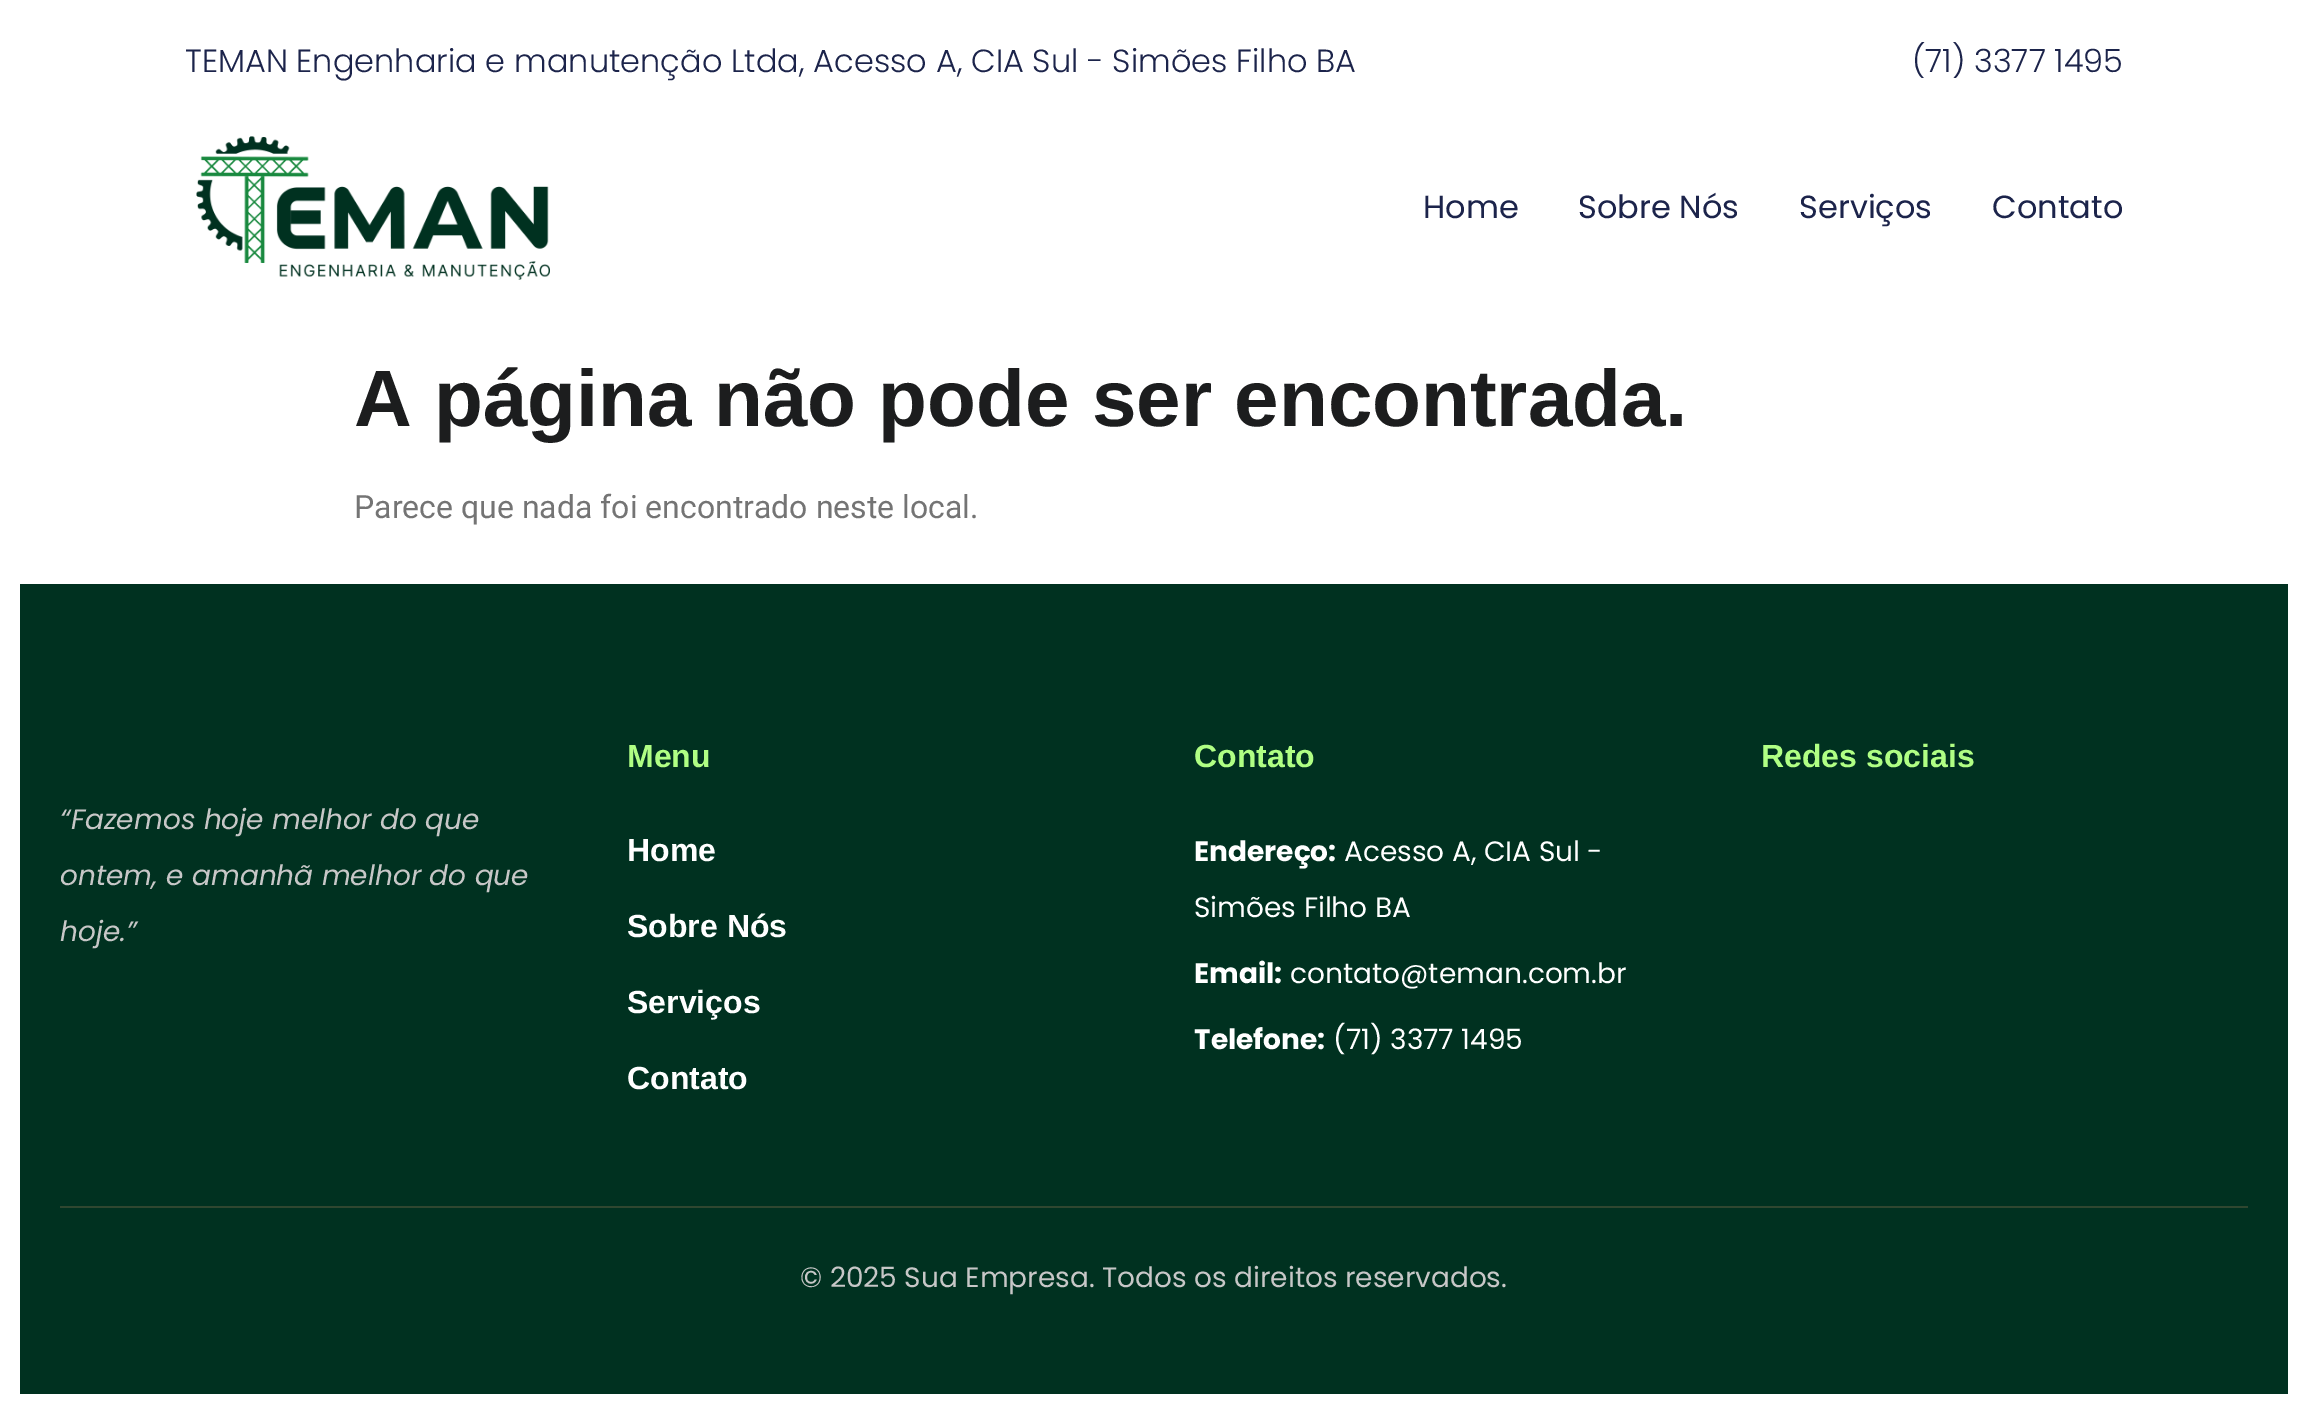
%!PS
<< /PageSize [2308 1417] >> setpagedevice
/co { dup -16 bitshift 255 div exch dup -8 bitshift 255 and 255 div exch 255 and 255 div setrgbcolor } def
/fn { [ exch dup neg 0 0 3 -1 roll 0 0 ] selectfont } def
/tx { co fn moveto show } def
/bx { co rectfill } def
/im { 5 dict begin { /h /w /y /x /name } { exch def } forall
  gsave x y translate w h scale
  w h 8 [w 0 0 h 0 0] name (r) file false 3 colorimage grestore end } def
0 1417 translate 1 -1 scale
4 setmiterlimit
0 0 2308 1417 16#FFFFFF bx
(media/1.raw) 196 136 354 144 im
20 584 2268 810 16#003120 bx
60 1206 2188 2 16#2F4730 bx
(TEMAN Engenharia e manutenção Ltda, Acesso A, CIA Sul - Simões Filho BA) 185 72 /Poppins-Light 32 16#1C244B tx
(\(71\) 3377 1495) 1912 72 /Poppins-Light 32 16#1C244B tx
(Home) 1423 218 /Poppins-Regular 32 16#1C244B tx
(Sobre Nós) 1578 218 /Poppins-Regular 32 16#1C244B tx
(Serviços) 1799 218 /Poppins-Regular 32 16#1C244B tx
(Contato) 1992 218 /Poppins-Regular 32 16#1C244B tx
(A página não pode ser encontrada.) 354 426 /LiberationSans-Bold 80 16#1C1D1E tx
(Parece que nada foi encontrado neste local.) 354 518 /Roboto-Regular 32 16#747474 tx
(“Fazemos hoje melhor do que) 60 829 /Poppins-Italic 28 16#C7C7C7 tx
(ontem, e amanhã melhor do que) 60 885 /Poppins-Italic 28 16#C7C7C7 tx
(hoje.”) 60 941 /Poppins-Italic 28 16#C7C7C7 tx
(Menu) 627 767 /LiberationSans-Bold 32 16#B0FF84 tx
(Home) 627 861 /LiberationSans-Bold 32 16#FFFFFF tx
(Sobre Nós) 627 937 /LiberationSans-Bold 32 16#FFFFFF tx
(Serviços) 627 1013 /LiberationSans-Bold 32 16#FFFFFF tx
(Contato) 627 1089 /LiberationSans-Bold 32 16#FFFFFF tx
(Contato) 1194 767 /LiberationSans-Bold 32 16#B0FF84 tx
(Endereço:) 1194 861 /Poppins-Bold 28 16#FFFFFF tx
(Acesso A, CIA Sul -) 1344 861 /Poppins-Regular 28 16#FFFFFF tx
(Simões Filho BA) 1194 917 /Poppins-Regular 28 16#FFFFFF tx
(Email:) 1194 983 /Poppins-Bold 28 16#FFFFFF tx
(contato@teman.com.br) 1290 983 /Poppins-Regular 28 16#FFFFFF tx
(Telefone:) 1194 1049 /Poppins-Bold 28 16#FFFFFF tx
(\(71\) 3377 1495) 1333 1049 /Poppins-Regular 28 16#FFFFFF tx
(Redes sociais) 1761 767 /LiberationSans-Bold 32 16#B0FF84 tx
(© 2025 Sua Empresa. Todos os direitos reservados.) 800 1287 /Poppins-Regular 28 16#C7C7C7 tx
showpage
